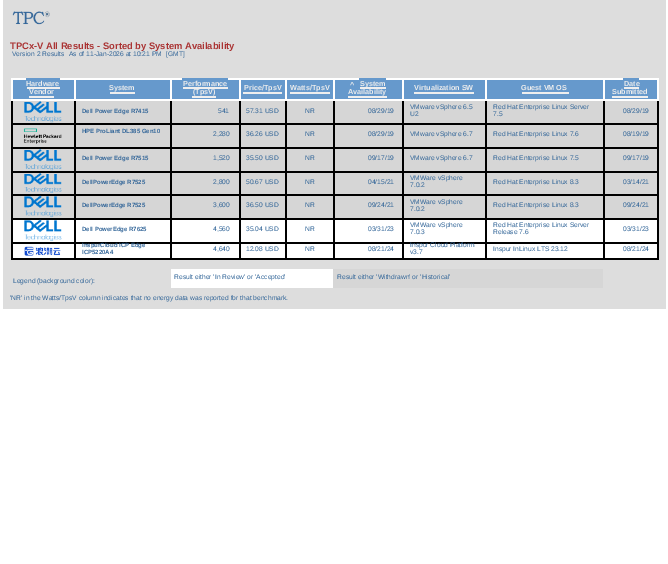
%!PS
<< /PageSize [668 564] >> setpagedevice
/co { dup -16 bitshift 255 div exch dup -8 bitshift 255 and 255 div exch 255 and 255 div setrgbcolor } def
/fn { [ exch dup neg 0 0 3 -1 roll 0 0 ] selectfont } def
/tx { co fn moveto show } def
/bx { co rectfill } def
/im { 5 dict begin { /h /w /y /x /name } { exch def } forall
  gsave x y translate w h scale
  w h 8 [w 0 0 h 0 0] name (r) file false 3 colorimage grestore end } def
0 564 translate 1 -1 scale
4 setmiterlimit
0 0 668 564 16#FFFFFF bx
3 0 663 309 16#DDDDDD bx
(media/1.raw) 12 11 38 14 im
13 80 61 19 16#6699CC bx
603 78 56 2 16#FFFFFF bx
603 123 56 2 16#000000 bx
603 147 56 2 16#000000 bx
603 171 56 2 16#000000 bx
603 194 56 2 16#000000 bx
603 218 56 2 16#000000 bx
603 242 56 2 16#000000 bx
657 242 2 18 16#000000 bx
657 218 2 25 16#000000 bx
657 194 2 25 16#000000 bx
657 171 2 24 16#000000 bx
657 147 2 26 16#000000 bx
657 99 2 50 16#000000 bx
657 78 2 23 16#FFFFFF bx
13 101 644 22 16#D6D6D6 bx
13 125 644 22 16#D6D6D6 bx
13 149 644 22 16#D6D6D6 bx
13 173 644 21 16#D6D6D6 bx
13 196 644 22 16#D6D6D6 bx
13 220 644 22 16#FFFFFF bx
13 244 644 14 16#FFFFFF bx
603 258 56 2 16#000000 bx
603 242 2 18 16#000000 bx
485 242 120 2 16#000000 bx
603 218 2 25 16#000000 bx
485 218 120 2 16#000000 bx
603 194 2 25 16#000000 bx
485 194 120 2 16#000000 bx
603 171 2 24 16#000000 bx
485 171 120 2 16#000000 bx
603 147 2 26 16#000000 bx
485 147 120 2 16#000000 bx
603 123 2 26 16#000000 bx
485 123 120 2 16#000000 bx
603 99 2 26 16#000000 bx
603 99 56 2 16#FFFFFF bx
603 78 2 23 16#FFFFFF bx
485 78 120 2 16#FFFFFF bx
485 258 120 2 16#000000 bx
485 242 2 18 16#000000 bx
402 242 84 2 16#000000 bx
485 218 2 25 16#000000 bx
402 218 84 2 16#000000 bx
485 194 2 25 16#000000 bx
402 194 84 2 16#000000 bx
485 171 2 24 16#000000 bx
402 171 84 2 16#000000 bx
485 147 2 26 16#000000 bx
402 147 84 2 16#000000 bx
485 123 2 26 16#000000 bx
402 123 84 2 16#000000 bx
485 99 2 26 16#000000 bx
485 99 120 2 16#FFFFFF bx
485 78 2 23 16#FFFFFF bx
402 78 84 2 16#FFFFFF bx
402 258 84 2 16#000000 bx
402 242 2 18 16#000000 bx
333 242 71 2 16#000000 bx
402 218 2 25 16#000000 bx
333 218 71 2 16#000000 bx
402 194 2 25 16#000000 bx
333 194 71 2 16#000000 bx
402 171 2 24 16#000000 bx
333 171 71 2 16#000000 bx
402 147 2 26 16#000000 bx
333 147 71 2 16#000000 bx
402 123 2 26 16#000000 bx
333 123 71 2 16#000000 bx
402 99 2 26 16#000000 bx
402 99 84 2 16#FFFFFF bx
402 78 2 23 16#FFFFFF bx
333 78 71 2 16#FFFFFF bx
333 258 71 2 16#000000 bx
333 242 2 18 16#000000 bx
285 242 50 2 16#000000 bx
333 218 2 25 16#000000 bx
285 218 50 2 16#000000 bx
333 194 2 25 16#000000 bx
285 194 50 2 16#000000 bx
333 171 2 24 16#000000 bx
285 171 50 2 16#000000 bx
333 147 2 26 16#000000 bx
285 147 50 2 16#000000 bx
333 123 2 26 16#000000 bx
285 123 50 2 16#000000 bx
333 99 2 26 16#000000 bx
333 99 71 2 16#FFFFFF bx
333 78 2 23 16#FFFFFF bx
285 78 50 2 16#FFFFFF bx
285 258 50 2 16#000000 bx
285 242 2 18 16#000000 bx
239 242 48 2 16#000000 bx
285 218 2 25 16#000000 bx
239 218 48 2 16#000000 bx
285 194 2 25 16#000000 bx
239 194 48 2 16#000000 bx
285 171 2 24 16#000000 bx
239 171 48 2 16#000000 bx
285 147 2 26 16#000000 bx
239 147 48 2 16#000000 bx
285 123 2 26 16#000000 bx
239 123 48 2 16#000000 bx
285 99 2 26 16#000000 bx
285 99 50 2 16#FFFFFF bx
285 78 2 23 16#FFFFFF bx
239 78 48 2 16#FFFFFF bx
239 258 48 2 16#000000 bx
239 242 2 18 16#000000 bx
170 242 70 2 16#000000 bx
239 218 2 25 16#000000 bx
170 218 70 2 16#000000 bx
239 194 2 25 16#000000 bx
170 194 70 2 16#000000 bx
239 171 2 24 16#000000 bx
170 171 70 2 16#000000 bx
239 147 2 26 16#000000 bx
170 147 70 2 16#000000 bx
239 123 2 26 16#000000 bx
170 123 70 2 16#000000 bx
239 99 2 26 16#000000 bx
239 99 48 2 16#FFFFFF bx
239 78 2 23 16#FFFFFF bx
170 78 70 2 16#FFFFFF bx
170 258 70 2 16#000000 bx
170 242 2 18 16#000000 bx
74 242 97 2 16#000000 bx
170 218 2 25 16#000000 bx
74 218 97 2 16#000000 bx
170 194 2 25 16#000000 bx
74 194 97 2 16#000000 bx
170 171 2 24 16#000000 bx
74 171 97 2 16#000000 bx
170 147 2 26 16#000000 bx
74 147 97 2 16#000000 bx
170 123 2 26 16#000000 bx
74 123 97 2 16#000000 bx
170 99 2 26 16#000000 bx
170 99 70 2 16#FFFFFF bx
170 78 2 23 16#FFFFFF bx
74 78 97 2 16#FFFFFF bx
74 258 97 2 16#000000 bx
74 242 2 18 16#000000 bx
11 242 64 2 16#000000 bx
74 218 2 25 16#000000 bx
11 218 64 2 16#000000 bx
74 194 2 25 16#000000 bx
11 194 64 2 16#000000 bx
74 171 2 24 16#000000 bx
11 171 64 2 16#000000 bx
74 147 2 26 16#000000 bx
11 147 64 2 16#000000 bx
74 123 2 26 16#000000 bx
11 123 64 2 16#000000 bx
74 99 2 26 16#000000 bx
74 99 97 2 16#FFFFFF bx
74 78 2 23 16#FFFFFF bx
11 78 64 2 16#FFFFFF bx
11 258 64 2 16#000000 bx
11 242 2 18 16#000000 bx
11 218 2 25 16#000000 bx
11 194 2 25 16#000000 bx
11 171 2 24 16#000000 bx
11 147 2 26 16#000000 bx
11 99 2 50 16#000000 bx
11 99 64 2 16#FFFFFF bx
11 78 2 23 16#FFFFFF bx
26 78 34 2 16#6699CC bx
27 87 33 2 16#EEEEEE bx
29 96 25 2 16#EEEEEE bx
76 80 94 19 16#6699CC bx
110 92 25 2 16#EEEEEE bx
172 80 67 19 16#6699CC bx
182 78 46 2 16#6699CC bx
183 87 45 2 16#EEEEEE bx
192 96 24 2 16#EEEEEE bx
241 80 44 19 16#6699CC bx
243 92 39 2 16#EEEEEE bx
287 80 46 19 16#6699CC bx
290 92 40 2 16#EEEEEE bx
335 80 67 19 16#6699CC bx
359 78 27 2 16#6699CC bx
360 87 26 2 16#EEEEEE bx
348 96 39 2 16#EEEEEE bx
404 80 81 19 16#6699CC bx
414 92 60 2 16#EEEEEE bx
487 80 116 19 16#6699CC bx
522 92 47 2 16#EEEEEE bx
605 80 52 19 16#6699CC bx
623 78 16 2 16#6699CC bx
624 87 15 2 16#EEEEEE bx
612 96 36 2 16#EEEEEE bx
(media/2.raw) 24 101 38 22 im
(media/3.raw) 23 128 39 16 im
(media/2.raw) 24 149 38 22 im
(media/4.raw) 24 173 38 21 im
(media/5.raw) 24 195 38 23 im
(media/6.raw) 24 219 38 23 im
(media/7.raw) 24 246 37 10 im
171 269 162 19 16#FFFFFF bx
333 269 270 19 16#D6D6D6 bx
(TPCx-V All Results - Sorted by System Availability) 10 49 /LiberationSans-Bold 9.4 16#AA3333 tx
(Version 2 Results) 12 56 /LiberationSans-Regular 6.7 16#336699 tx
(As of 11-Jan-2026 at 10:21 PM) 69 56 /LiberationSans-Regular 6.7 16#336699 tx
([GMT]) 166 56 /LiberationSans-Regular 6.7 16#336699 tx
(Hardware) 26 86 /LiberationSans-Bold 7.25 16#EEEEEE tx
(Vendor) 29 94 /LiberationSans-Bold 7.25 16#EEEEEE tx
(System) 109 90 /LiberationSans-Bold 7.25 16#EEEEEE tx
(Performance) 183 86 /LiberationSans-Bold 7.25 16#EEEEEE tx
(\(TpsV\)) 193 94 /LiberationSans-Bold 7.25 16#EEEEEE tx
(Price/TpsV) 244 90 /LiberationSans-Bold 7.25 16#EEEEEE tx
(Watts/TpsV) 290 90 /LiberationSans-Bold 7.25 16#EEEEEE tx
(^) 350 87 /LiberationSans-Bold 7.25 16#EEEEEE tx
(System) 360 86 /LiberationSans-Bold 7.25 16#EEEEEE tx
(Availability) 348 94 /LiberationSans-Bold 7.25 16#EEEEEE tx
(Virtualization SW) 414 90 /LiberationSans-Bold 7.25 16#EEEEEE tx
(Guest VM OS) 521 90 /LiberationSans-Bold 7.25 16#EEEEEE tx
(Date) 624 86 /LiberationSans-Bold 7.25 16#EEEEEE tx
(Submitted) 612 94 /LiberationSans-Bold 7.25 16#EEEEEE tx
(Dell Power Edge R7415) 82 113 /LiberationSans-Bold 6 16#336699 tx
(541) 218 113 /LiberationSans-Regular 6.7 16#336699 tx
(57.31 USD) 246 113 /LiberationSans-Regular 6.7 16#336699 tx
(NR) 305 113 /LiberationSans-Regular 6.7 16#336699 tx
(08/29/19) 368 113 /LiberationSans-Regular 6.7 16#336699 tx
(VMware vSphere 6.5) 410 109 /LiberationSans-Regular 6.7 16#336699 tx
(U2) 410 116 /LiberationSans-Regular 6.7 16#336699 tx
(Red Hat Enterprise Linux Server) 493 109 /LiberationSans-Regular 6.7 16#336699 tx
(7.5) 493 116 /LiberationSans-Regular 6.7 16#336699 tx
(08/29/19) 623 113 /LiberationSans-Regular 6.7 16#336699 tx
(HPE ProLiant DL385 Gen10) 82 133 /LiberationSans-Bold 6 16#336699 tx
(2,280) 213 136 /LiberationSans-Regular 6.7 16#336699 tx
(36.26 USD) 246 136 /LiberationSans-Regular 6.7 16#336699 tx
(NR) 305 136 /LiberationSans-Regular 6.7 16#336699 tx
(08/29/19) 368 136 /LiberationSans-Regular 6.7 16#336699 tx
(VMware vSphere 6.7) 410 136 /LiberationSans-Regular 6.7 16#336699 tx
(Red Hat Enterprise Linux 7.6) 493 136 /LiberationSans-Regular 6.7 16#336699 tx
(08/19/19) 623 136 /LiberationSans-Regular 6.7 16#336699 tx
(Dell Power Edge R7515) 82 160 /LiberationSans-Bold 6 16#336699 tx
(1,520) 213 160 /LiberationSans-Regular 6.7 16#336699 tx
(35.50 USD) 246 160 /LiberationSans-Regular 6.7 16#336699 tx
(NR) 305 160 /LiberationSans-Regular 6.7 16#336699 tx
(09/17/19) 368 160 /LiberationSans-Regular 6.7 16#336699 tx
(VMware vSphere 6.7) 410 160 /LiberationSans-Regular 6.7 16#336699 tx
(Red Hat Enterprise Linux 7.5) 493 160 /LiberationSans-Regular 6.7 16#336699 tx
(09/17/19) 623 160 /LiberationSans-Regular 6.7 16#336699 tx
(DellPowerEdge R7525) 82 184 /LiberationSans-Bold 6 16#336699 tx
(2,800) 213 184 /LiberationSans-Regular 6.7 16#336699 tx
(50.67 USD) 246 184 /LiberationSans-Regular 6.7 16#336699 tx
(NR) 305 184 /LiberationSans-Regular 6.7 16#336699 tx
(04/15/21) 368 184 /LiberationSans-Regular 6.7 16#336699 tx
(VMWare vSphere) 410 180 /LiberationSans-Regular 6.7 16#336699 tx
(7.0.2) 410 187 /LiberationSans-Regular 6.7 16#336699 tx
(Red Hat Enterprise Linux 8.3) 493 184 /LiberationSans-Regular 6.7 16#336699 tx
(03/14/21) 623 184 /LiberationSans-Regular 6.7 16#336699 tx
(DellPowerEdge R7525) 82 207 /LiberationSans-Bold 6 16#336699 tx
(3,600) 213 207 /LiberationSans-Regular 6.7 16#336699 tx
(36.50 USD) 246 207 /LiberationSans-Regular 6.7 16#336699 tx
(NR) 305 207 /LiberationSans-Regular 6.7 16#336699 tx
(09/24/21) 368 207 /LiberationSans-Regular 6.7 16#336699 tx
(VMWare vSphere) 410 204 /LiberationSans-Regular 6.7 16#336699 tx
(7.0.2) 410 211 /LiberationSans-Regular 6.7 16#336699 tx
(Red Hat Enterprise Linux 8.3) 493 207 /LiberationSans-Regular 6.7 16#336699 tx
(09/24/21) 623 207 /LiberationSans-Regular 6.7 16#336699 tx
(Dell PowerEdge R7625) 82 231 /LiberationSans-Bold 6 16#336699 tx
(4,560) 213 231 /LiberationSans-Regular 6.7 16#336699 tx
(35.04 USD) 246 231 /LiberationSans-Regular 6.7 16#336699 tx
(NR) 305 231 /LiberationSans-Regular 6.7 16#336699 tx
(03/31/23) 368 231 /LiberationSans-Regular 6.7 16#336699 tx
(VMWare vSphere) 410 227 /LiberationSans-Regular 6.7 16#336699 tx
(7.0.3) 410 234 /LiberationSans-Regular 6.7 16#336699 tx
(Red Hat Enterprise Linux Server) 493 227 /LiberationSans-Regular 6.7 16#336699 tx
(Release 7.6) 493 234 /LiberationSans-Regular 6.7 16#336699 tx
(03/31/23) 623 231 /LiberationSans-Regular 6.7 16#336699 tx
(InspurCloud ICP Edge) 82 247 /LiberationSans-Bold 6 16#336699 tx
(ICP5220A4) 82 254 /LiberationSans-Bold 6 16#336699 tx
(4,640) 213 251 /LiberationSans-Regular 6.7 16#336699 tx
(12.08 USD) 246 251 /LiberationSans-Regular 6.7 16#336699 tx
(NR) 305 251 /LiberationSans-Regular 6.7 16#336699 tx
(08/21/24) 368 251 /LiberationSans-Regular 6.7 16#336699 tx
(Inspur Cloud Platform) 410 247 /LiberationSans-Regular 6.7 16#336699 tx
(v3.7) 410 254 /LiberationSans-Regular 6.7 16#336699 tx
(Inspur InLinux LTS 23.12) 493 251 /LiberationSans-Regular 6.7 16#336699 tx
(08/21/24) 623 251 /LiberationSans-Regular 6.7 16#336699 tx
(Result either 'In Review' or 'Accepted') 174 279 /LiberationSans-Regular 6.7 16#336699 tx
(Result either 'Withdrawn' or 'Historical') 337 279 /LiberationSans-Regular 6.7 16#336699 tx
(Legend \(background color\):) 13 283 /LiberationSans-Regular 6.7 16#336699 tx
('NR' in the Watts/TpsV column indicates that no energy data was reported for that benchmark.) 10 300 /LiberationSans-Regular 6.7 16#336699 tx
showpage
